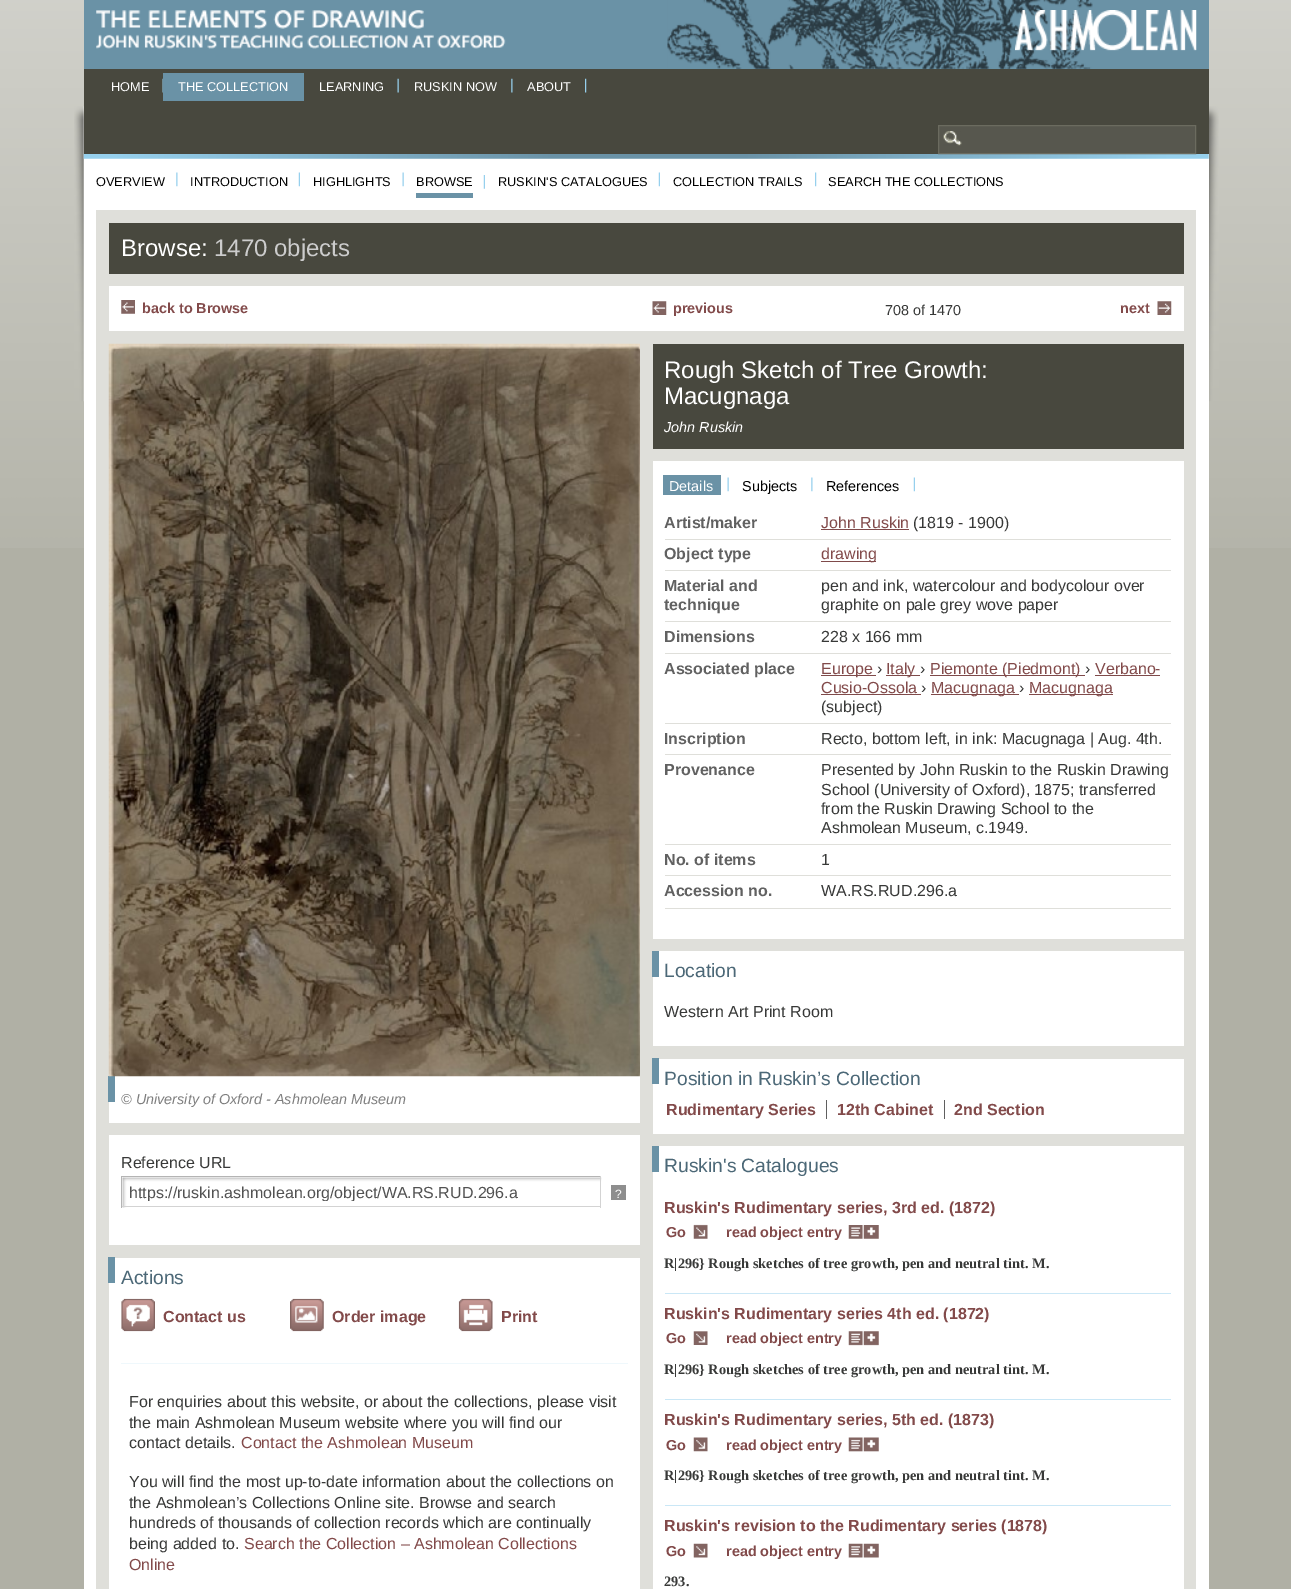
%!PS
<< /PageSize [1291 1589] >> setpagedevice
/gs/gsave load def
/gr/grestore load def
/co { dup -16 bitshift 255 div exch dup -8 bitshift 255 and 255 div exch 255 and 255 div setrgbcolor } def
/fn { [ exch dup neg 0 0 3 -1 roll 0 0 ] selectfont } def
/tx { co fn moveto show } def
/bx { co rectfill } def
/im { 5 dict begin { /h /w /y /x /name } { exch def } forall
  gsave x y translate w h scale
  w h 8 [w 0 0 h 0 0] name (r) file false 3 colorimage grestore end } def
0 1589 translate 1 -1 scale
4 setmiterlimit
0 0 1291 1589 16#B0B0A5 bx
(media/1.raw) 0 0 1291 548 im
(media/2.raw) 74 106 1145 296 im
84 0 1125 69 16#6A92A6 bx
(media/3.raw) 667 0 426 69 im
(media/4.raw) 96 10 410 39 im
(media/5.raw) 1015 10 182 41 im
84 154 1125 1435 16#FFFFFF bx
(media/11.raw) 83 153 1126 6 im
84 69 1125 85 16#48483E bx
(media/6.raw) 162 78 1 15 im
163 73 141 28 16#6A92A6 bx
(media/7.raw) 397 78 2 15 im
(media/8.raw) 511 78 2 15 im
(media/9.raw) 585 78 2 15 im
939 126 256 27 16#57574E bx
(media/10.raw) 943 131 19 15 im
16#6B6B5F co
938.5 125.5 257 28 rectstroke
(media/12.raw) 176 172 2 15 im
(media/13.raw) 298 172 2 15 im
(media/14.raw) 402 172 2 15 im
(media/15.raw) 483 175 2 14 im
416 193 57 5 16#6A92A6 bx
(media/13.raw) 658 172 2 15 im
(media/16.raw) 815 172 2 15 im
96 210 1100 1379 16#DFDFDA bx
109 223 1075 51 16#48483E bx
109 286 1075 45 16#FFFFFF bx
(media/17.raw) 121 300 14 14 im
(media/18.raw) 652 301 15 14 im
(media/19.raw) 1157 301 15 14 im
109 1076 531 513 16#FFFFFF bx
108 1076 7 26 16#6A92A6 bx
(media/20.raw) 108 343 532 734 im
109 1123 531 12 16#DFDFDA bx
109 1245 531 13 16#DFDFDA bx
(media/21.raw) 122 1177 480 31 im
121 1176 480 1 16#B4B4B4 bx
600 1176 1 32 16#D3D3D3 bx
121 1206 480 1 16#D3D3D3 bx
121 1176 1 32 16#B4B4B4 bx
611 1185 15 15 16#8E8E8E bx
108 1257 7 26 16#6A92A6 bx
(media/22.raw) 121 1298 34 34 im
(media/23.raw) 290 1298 34 34 im
(media/24.raw) 458 1298 35 34 im
121 1363 507 1 16#EFF8FC bx
653 461 531 1128 16#FFFFFF bx
653 344 531 105 16#48483E bx
653 939 531 12 16#DFDFDA bx
(media/14.raw) 727 477 2 15 im
663 475 58 20 16#6A92A6 bx
(media/12.raw) 811 477 2 15 im
(media/13.raw) 913 477 2 15 im
665 539 506 1 16#DFDFDA bx
821 529 88 1 16#7F4A4A bx
665 570 506 1 16#DFDFDA bx
821 561 55 1 16#7F4A4A bx
665 621 506 1 16#DFDFDA bx
665 653 506 1 16#DFDFDA bx
665 723 506 1 16#DFDFDA bx
821 675 55 1 16#7F4A4A bx
886 675 34 1 16#7F4A4A bx
930 675 155 1 16#7F4A4A bx
1095 675 65 1 16#7F4A4A bx
821 694 100 1 16#7F4A4A bx
931 694 88 1 16#7F4A4A bx
1029 694 84 1 16#7F4A4A bx
665 754 506 1 16#DFDFDA bx
665 844 506 1 16#DFDFDA bx
665 875 506 1 16#DFDFDA bx
665 908 506 1 16#DFDFDA bx
652 951 7 26 16#6A92A6 bx
653 1046 531 13 16#DFDFDA bx
652 1058 7 26 16#6A92A6 bx
653 1134 531 12 16#DFDFDA bx
826 1100 1 19 16#5F5F5F bx
944 1100 1 19 16#5F5F5F bx
652 1146 7 26 16#6A92A6 bx
(media/25.raw) 693 1224 15 15 im
(media/26.raw) 848 1225 31 14 im
665 1293 506 1 16#CAE7F6 bx
(media/27.raw) 693 1331 15 14 im
(media/28.raw) 848 1331 31 15 im
665 1399 506 1 16#CAE7F6 bx
(media/29.raw) 693 1437 15 15 im
(media/30.raw) 848 1437 31 15 im
665 1505 506 1 16#CAE7F6 bx
(media/31.raw) 693 1543 15 15 im
(media/32.raw) 848 1543 31 15 im
(HOME) 111 91 /LiberationSans-Regular 12.75 16#FFFFFF tx
(THE COLLECTION) 178 91 /LiberationSans-Regular 12.75 16#FFFFFF tx
(LEARNING) 319 91 /LiberationSans-Regular 12.75 16#FFFFFF tx
(RUSKIN NOW) 414 91 /LiberationSans-Regular 12.75 16#FFFFFF tx
(ABOUT) 527 91 /LiberationSans-Regular 12.75 16#FFFFFF tx
(OVERVIEW) 96 186 /LiberationSans-Regular 12.75 16#000000 tx
(INTRODUCTION) 190 186 /LiberationSans-Regular 12.75 16#000000 tx
(HIGHLIGHTS) 313 186 /LiberationSans-Regular 12.75 16#000000 tx
(BROWSE) 416 186 /LiberationSans-Regular 12.75 16#000000 tx
(RUSKIN'S CATALOGUES) 498 186 /LiberationSans-Regular 12.75 16#000000 tx
(COLLECTION TRAILS) 673 186 /LiberationSans-Regular 12.75 16#000000 tx
(SEARCH THE COLLECTIONS) 828 186 /LiberationSans-Regular 12.75 16#000000 tx
(Browse:) 121 256 /LiberationSans-Regular 24 16#FFFFFF tx
(1470 objects) 214 256 /LiberationSans-Regular 24 16#CCCCCC tx
(back to Browse) 142 313 /LiberationSans-Bold 14.4 16#824A4A tx
(previous) 673 313 /LiberationSans-Bold 14.4 16#824A4A tx
(708 of 1470) 885 315 /LiberationSans-Regular 14.4 16#383938 tx
(next) 1120 313 /LiberationSans-Bold 14.4 16#824A4A tx
(© University of Oxford - Ashmolean Museum) 121 1104 /LiberationSans-Italic 14.4 16#7F7F7F tx
(Reference URL) 121 1168 /LiberationSans-Regular 16 16#383938 tx
gs
130 1183 463 18 rectclip
(https://ruskin.ashmolean.org/object/WA.RS.RUD.296.a) 129 1198 /LiberationSans-Regular 16 16#525252 tx
gr
(?) 615 1198 /LiberationSans-Regular 12 16#FFFFFF tx
(Actions) 121 1284 /LiberationSans-Regular 19.25 16#4C6877 tx
(Contact us) 163 1322 /LiberationSans-Bold 16 16#824A4A tx
(Order image) 332 1322 /LiberationSans-Bold 16 16#824A4A tx
(Print) 501 1322 /LiberationSans-Bold 16 16#824A4A tx
(For enquiries about this website, or about the collections, please visit) 129 1407 /LiberationSans-Regular 16 16#383938 tx
(the main Ashmolean Museum website where you will find our) 129 1428 /LiberationSans-Regular 16 16#383938 tx
(contact details.) 129 1448 /LiberationSans-Regular 16 16#383938 tx
(Contact the Ashmolean Museum) 241 1448 /LiberationSans-Regular 16 16#824A4A tx
(You will find the most up-to-date information about the collections on) 129 1487 /LiberationSans-Regular 16 16#383938 tx
(the Ashmolean’s Collections Online site. Browse and search) 129 1508 /LiberationSans-Regular 16 16#383938 tx
(hundreds of thousands of collection records which are continually) 129 1528 /LiberationSans-Regular 16 16#383938 tx
(being added to.) 129 1549 /LiberationSans-Regular 16 16#383938 tx
(Search the Collection – Ashmolean Collections) 244 1549 /LiberationSans-Regular 16 16#824A4A tx
(Online) 129 1570 /LiberationSans-Regular 16 16#824A4A tx
(Rough Sketch of Tree Growth:) 664 378 /LiberationSans-Regular 24 16#FFFFFF tx
(Macugnaga) 664 404 /LiberationSans-Regular 24 16#FFFFFF tx
(John Ruskin) 664 432 /LiberationSans-Italic 14.4 16#FFFFFF tx
(Details) 669 491 /LiberationSans-Regular 14.4 16#FFFFFF tx
(Subjects) 742 491 /LiberationSans-Regular 14.4 16#000000 tx
(References) 826 491 /LiberationSans-Regular 14.4 16#000000 tx
(Artist/maker) 664 528 /LiberationSans-Bold 16 16#616161 tx
(John Ruskin) 821 528 /LiberationSans-Regular 16 16#824A4A tx
(\(1819 - 1900\)) 913 528 /LiberationSans-Regular 16 16#383938 tx
(Object type) 664 559 /LiberationSans-Bold 16 16#616161 tx
(drawing) 821 559 /LiberationSans-Regular 16 16#824A4A tx
(Material and) 664 591 /LiberationSans-Bold 16 16#616161 tx
(technique) 664 610 /LiberationSans-Bold 16 16#616161 tx
(pen and ink, watercolour and bodycolour over) 821 591 /LiberationSans-Regular 16 16#383938 tx
(graphite on pale grey wove paper) 821 610 /LiberationSans-Regular 16 16#383938 tx
(Dimensions) 664 642 /LiberationSans-Bold 16 16#616161 tx
(228 x 166 mm) 821 642 /LiberationSans-Regular 16 16#383938 tx
(Associated place) 664 674 /LiberationSans-Bold 16 16#616161 tx
(Europe) 821 674 /LiberationSans-Regular 16 16#824A4A tx
(›) 877 674 /LiberationSans-Regular 16 16#383938 tx
(Italy) 886 674 /LiberationSans-Regular 16 16#824A4A tx
(›) 920 674 /LiberationSans-Regular 16 16#383938 tx
(Piemonte \(Piedmont\)) 930 674 /LiberationSans-Regular 16 16#824A4A tx
(›) 1085 674 /LiberationSans-Regular 16 16#383938 tx
(Verbano-) 1095 674 /LiberationSans-Regular 16 16#824A4A tx
(Cusio-Ossola) 821 693 /LiberationSans-Regular 16 16#824A4A tx
(›) 921 693 /LiberationSans-Regular 16 16#383938 tx
(Macugnaga) 931 693 /LiberationSans-Regular 16 16#824A4A tx
(›) 1019 693 /LiberationSans-Regular 16 16#383938 tx
(Macugnaga) 1029 693 /LiberationSans-Regular 16 16#824A4A tx
(\(subject\)) 821 712 /LiberationSans-Regular 16 16#383938 tx
(Inscription) 664 744 /LiberationSans-Bold 16 16#616161 tx
(Recto, bottom left, in ink: Macugnaga | Aug. 4th.) 821 744 /LiberationSans-Regular 16 16#383938 tx
(Provenance) 664 775 /LiberationSans-Bold 16 16#616161 tx
(Presented by John Ruskin to the Ruskin Drawing) 821 775 /LiberationSans-Regular 16 16#383938 tx
(School \(University of Oxford\), 1875; transferred) 821 795 /LiberationSans-Regular 16 16#383938 tx
(from the Ruskin Drawing School to the) 821 814 /LiberationSans-Regular 16 16#383938 tx
(Ashmolean Museum, c.1949.) 821 833 /LiberationSans-Regular 16 16#383938 tx
(No. of items) 664 865 /LiberationSans-Bold 16 16#616161 tx
(1) 821 865 /LiberationSans-Regular 16 16#383938 tx
(Accession no.) 664 896 /LiberationSans-Bold 16 16#616161 tx
(WA.RS.RUD.296.a) 821 896 /LiberationSans-Regular 16 16#383938 tx
(Location) 664 977 /LiberationSans-Regular 19.25 16#4C6877 tx
(Western Art Print Room) 664 1017 /LiberationSans-Regular 16 16#383938 tx
(Position in Ruskin’s Collection) 664 1085 /LiberationSans-Regular 19.25 16#4C6877 tx
(Rudimentary Series) 666 1115 /LiberationSans-Bold 16 16#824A4A tx
(12th Cabinet) 837 1115 /LiberationSans-Bold 16 16#824A4A tx
(2nd Section) 954 1115 /LiberationSans-Bold 16 16#824A4A tx
(Ruskin's Catalogues) 664 1172 /LiberationSans-Regular 19.25 16#4C6877 tx
(Ruskin's Rudimentary series, 3rd ed. \(1872\)) 664 1213 /LiberationSans-Bold 16 16#824A4A tx
(Go) 666 1237 /LiberationSans-Bold 14.4 16#824A4A tx
(read object entry) 726 1237 /LiberationSans-Bold 14.4 16#824A4A tx
(R|296} Rough sketches of tree growth, pen and neutral tint. M.) 664 1268 /LiberationSerif-Bold 14.4 16#383938 tx
(Ruskin's Rudimentary series 4th ed. \(1872\)) 664 1319 /LiberationSans-Bold 16 16#824A4A tx
(Go) 666 1343 /LiberationSans-Bold 14.4 16#824A4A tx
(read object entry) 726 1343 /LiberationSans-Bold 14.4 16#824A4A tx
(R|296} Rough sketches of tree growth, pen and neutral tint. M.) 664 1374 /LiberationSerif-Bold 14.4 16#383938 tx
(Ruskin's Rudimentary series, 5th ed. \(1873\)) 664 1425 /LiberationSans-Bold 16 16#824A4A tx
(Go) 666 1450 /LiberationSans-Bold 14.4 16#824A4A tx
(read object entry) 726 1450 /LiberationSans-Bold 14.4 16#824A4A tx
(R|296} Rough sketches of tree growth, pen and neutral tint. M.) 664 1480 /LiberationSerif-Bold 14.4 16#383938 tx
(Ruskin's revision to the Rudimentary series \(1878\)) 664 1531 /LiberationSans-Bold 16 16#824A4A tx
(Go) 666 1556 /LiberationSans-Bold 14.4 16#824A4A tx
(read object entry) 726 1556 /LiberationSans-Bold 14.4 16#824A4A tx
(293.) 664 1586 /LiberationSerif-Bold 14.4 16#383938 tx
showpage
